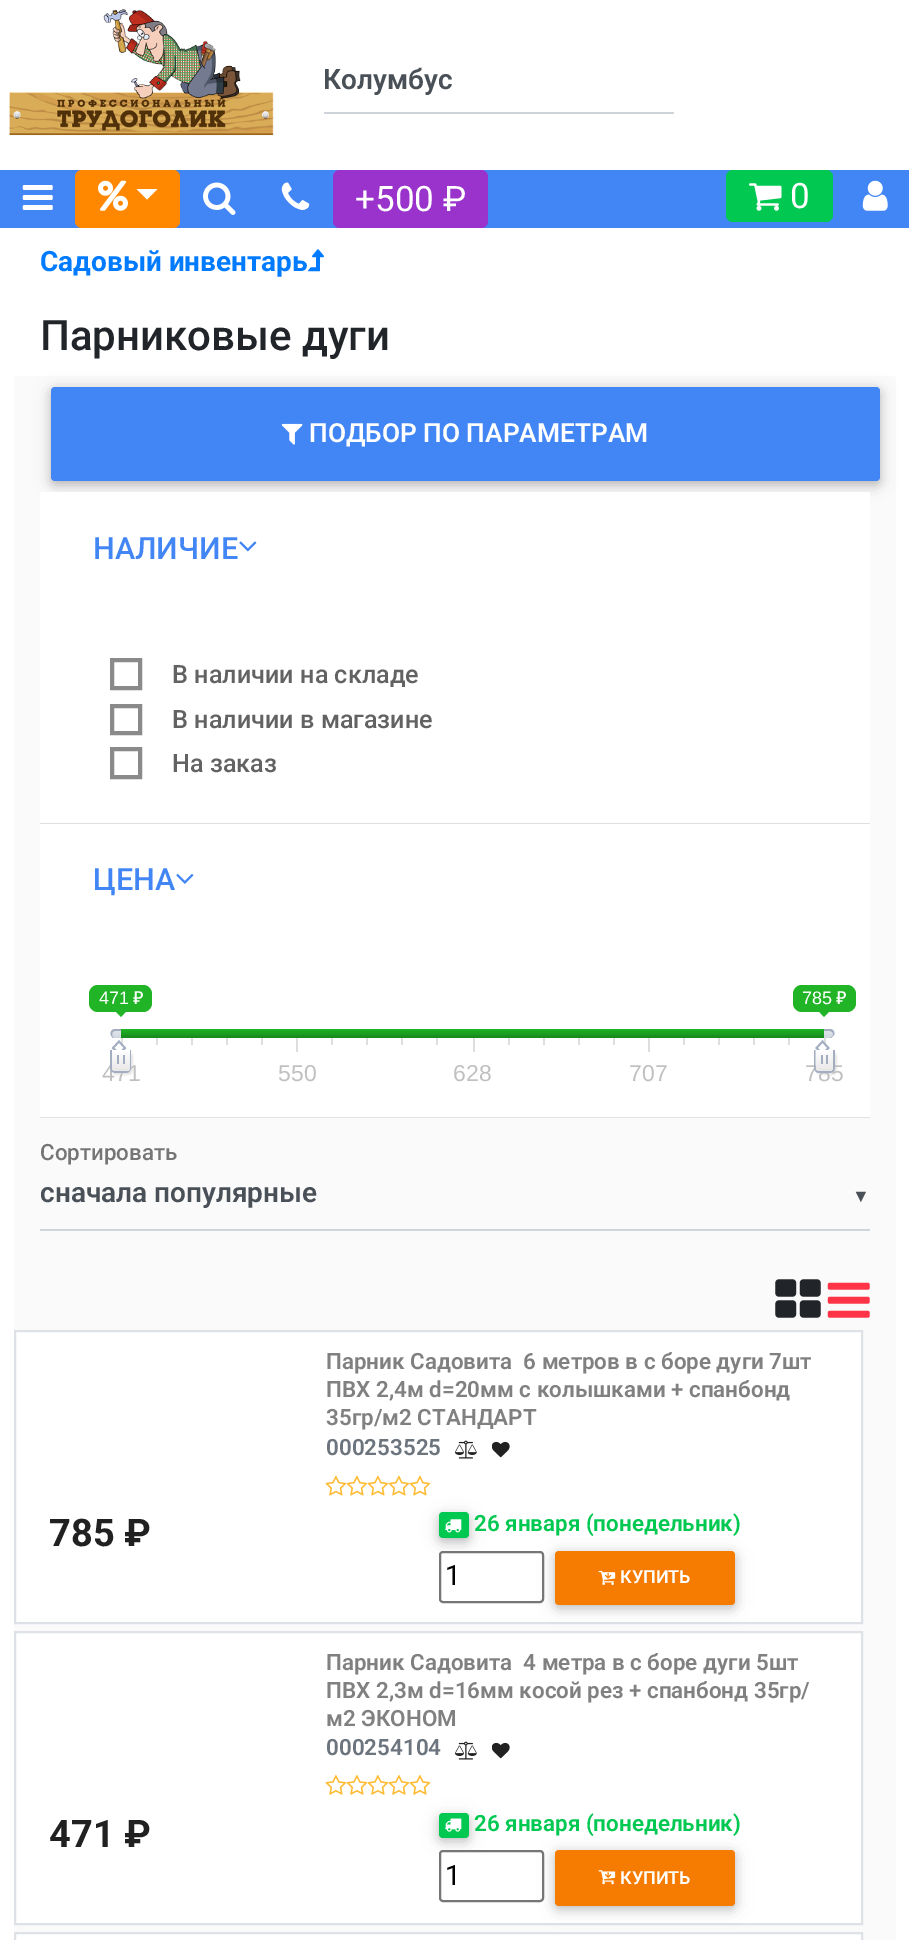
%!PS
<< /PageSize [909 1940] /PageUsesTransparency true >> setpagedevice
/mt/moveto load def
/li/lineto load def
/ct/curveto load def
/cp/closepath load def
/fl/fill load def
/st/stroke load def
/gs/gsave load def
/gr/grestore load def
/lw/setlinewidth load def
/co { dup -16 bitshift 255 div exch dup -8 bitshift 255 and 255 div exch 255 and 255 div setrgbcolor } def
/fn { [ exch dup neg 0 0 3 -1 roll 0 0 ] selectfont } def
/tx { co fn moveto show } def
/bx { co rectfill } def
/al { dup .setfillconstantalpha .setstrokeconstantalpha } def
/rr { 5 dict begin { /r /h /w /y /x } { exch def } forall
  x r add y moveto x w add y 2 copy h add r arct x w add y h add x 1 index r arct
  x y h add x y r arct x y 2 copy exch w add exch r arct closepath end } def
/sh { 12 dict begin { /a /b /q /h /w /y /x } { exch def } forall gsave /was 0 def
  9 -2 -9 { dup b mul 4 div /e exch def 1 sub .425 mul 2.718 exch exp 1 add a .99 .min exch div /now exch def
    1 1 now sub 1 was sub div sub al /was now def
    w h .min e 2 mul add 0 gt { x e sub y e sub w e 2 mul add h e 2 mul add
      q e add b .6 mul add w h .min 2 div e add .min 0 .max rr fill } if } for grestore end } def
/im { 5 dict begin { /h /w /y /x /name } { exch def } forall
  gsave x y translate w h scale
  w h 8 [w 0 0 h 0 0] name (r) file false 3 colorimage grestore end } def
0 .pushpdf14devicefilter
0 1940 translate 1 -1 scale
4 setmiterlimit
0 0 909 1940 16#FFFFFF bx
gs
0 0 mt 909 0 li 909 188 li 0 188 li cp 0 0 mt 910 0 li 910 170 li 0 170 li cp eoclip newpath
16#000000 co
0 4 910 169 0 4.5 .16 sh
gr
(media/1.raw) 9 9 265 127 im
324 112 350 2 16#CED4DA bx
0 170 909 58 16#4285F4 bx
(media/2.raw) 22 185 31 25 im
16#FF8800 co
75 170 105 58 7 rr fl
(media/3.raw) 98 180 30 31 im
16#FFFFFF co
136.5 189 mt 157.5 189 li 147 199.5 li cp fl
(media/4.raw) 203 182 33 33 im
(media/5.raw) 281 182 29 28 im
16#9933CC co
333 170 155 58 7 rr fl
16#00C851 co
726 170 107 52 7 rr fl
(media/6.raw) 749 183 33 28 im
(media/7.raw) 862 180 26 31 im
(media/8.raw) 308 249 16 23 im
14 376 882 1564 16#FAFAFA bx
16#000000 co
51 390 829 95 4 9 .12 sh
51 390 829 95 4 4.5 .16 sh
16#4285F4 co
51 387 829 94 4 rr fl
(media/9.raw) 281 423 22 22 im
40 492 830 331 16#FFFFFF bx
40 823 830 1 16#E0E0E0 bx
(media/10.raw) 239 541 18 11 im
16#8A8A8A co
4 lw
112 660 28 28 rectstroke
112 706 28 27 rectstroke
112 749 28 28 rectstroke
40 824 830 293 16#FFFFFF bx
40 1117 830 1 16#E0E0E0 bx
(media/11.raw) 176 874 18 10 im
16#20B426 co
89 985 63 27 9 rr fl
115.5 1011.5 mt 126 1011.5 li 121 1017 li cp fl
793 985 63 27 9 rr fl
819 1011.5 mt 829.5 1011.5 li 824 1017 li cp fl
gs 115 1031 mt 830 1031 li 832 1032 li 834 1033 833 1038 830 1038 ct 115 1038 li 111 1038 111 1031 115 1031 ct cp clip newpath
<< /ShadingType 2 /ColorSpace /DeviceRGB /Coords [473 1031 473 1038] /Extend [true true] /Function << /FunctionType 2 /Domain [0 1] /C0 [.878 .894 .918] /C1 [.82 .839 .878] /N 1 >> >> shfill gr
16#A3ADC1 co
115 1029 mt 830 1029 li 834 1029 836 1034 833 1036 ct 830 1038 li 115 1038 li 109 1038 109 1029 115 1029 ct cp 115 1031 mt 830 1031 li 832 1032 li 834 1033 833 1038 830 1038 ct 115 1038 li 111 1038 111 1031 115 1031 ct cp eofill
gs 121 1029 mt 824 1029 li 824 1038 li 121 1038 li cp clip newpath
<< /ShadingType 2 /ColorSpace /DeviceRGB /Coords [473 1029 473 1038] /Extend [true true] /Function << /FunctionType 2 /Domain [0 1] /C0 [.125 .706 .149] /C1 [.094 .537 .114] /N 1 >> >> shfill gr
121 1038 2 14 16#DEDEDE bx
16#000000 co
112 1052 21 23 5 1 .1 sh
824 1038 2 14 16#DEDEDE bx
16#000000 co
816 1052 21 23 5 1 .1 sh
156 1038 2 7 16#DEDEDE bx
191 1038 2 7 16#DEDEDE bx
226 1038 2 7 16#DEDEDE bx
261 1038 2 7 16#DEDEDE bx
296 1038 2 14 16#DEDEDE bx
331 1038 2 7 16#DEDEDE bx
366 1038 2 7 16#DEDEDE bx
401 1038 2 7 16#DEDEDE bx
436 1038 2 7 16#DEDEDE bx
473 1038 2 14 16#DEDEDE bx
508 1038 2 7 16#DEDEDE bx
543 1038 2 7 16#DEDEDE bx
578 1038 2 7 16#DEDEDE bx
613 1038 2 7 16#DEDEDE bx
648 1038 2 14 16#DEDEDE bx
683 1038 2 7 16#DEDEDE bx
718 1038 2 7 16#DEDEDE bx
753 1038 2 7 16#DEDEDE bx
788 1038 2 7 16#DEDEDE bx
40 1229 830 2 16#CED4DA bx
(media/12.raw) 775 1279 46 39 im
(media/13.raw) 827 1282 43 36 im
16#FFFFFF co
15 1331 mt 862 1331 li 862 1623 li 15 1623 li cp gs fl gr
16#DEE2E6 co
2 lw
st
(media/14.raw) 455 1440 22 19 im
(media/15.raw) 492 1441 18 17 im
(media/16.raw) 325 1475 22 21 im
(media/17.raw) 346 1475 22 21 im
(media/17.raw) 367 1475 22 21 im
(media/17.raw) 388 1475 22 21 im
(media/17.raw) 409 1475 22 21 im
16#000000 co
439 1516 30 26 4 9 .12 sh
439 1516 30 26 4 4.5 .16 sh
16#00C851 co
439 1512 30 26 4 rr fl
(media/18.raw) 445 1519 17 14 im
16#FFFFFF co
440 1552 103 50 3 rr gs fl gr
16#767676 co
st
16#000000 co
555 1554 180 54 4 9 .12 sh
555 1554 180 54 4 4.5 .16 sh
16#F57C00 co
555 1551 180 54 4 rr fl
(media/19.raw) 598 1570 18 15 im
16#FFFFFF co
15 1632 mt 862 1632 li 862 1924 li 15 1924 li cp gs fl gr
16#DEE2E6 co
st
(media/14.raw) 455 1741 22 19 im
(media/15.raw) 492 1742 18 17 im
(media/20.raw) 325 1775 22 20 im
(media/21.raw) 346 1775 22 20 im
(media/21.raw) 367 1775 22 20 im
(media/21.raw) 388 1775 22 20 im
(media/21.raw) 409 1775 22 20 im
16#000000 co
439 1817 30 24 4 9 .12 sh
439 1817 30 24 4 4.5 .16 sh
16#00C851 co
439 1813 30 25 4 rr fl
(media/22.raw) 445 1818 17 14 im
16#FFFFFF co
440 1851 103 50 3 rr gs fl gr
16#767676 co
st
16#000000 co
555 1853 180 56 4 9 .12 sh
555 1853 180 56 4 4.5 .16 sh
16#F57C00 co
555 1850 180 56 4 rr fl
(media/23.raw) 598 1870 18 15 im
16#FFFFFF co
15 1933 mt 862 1933 li 862 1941 li 15 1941 li cp gs fl gr
16#DEE2E6 co
st
(Колумбус) 323 89 /Roboto-SemiBold 28 16#495057 tx
(+500 ₽) 355 211 /Roboto-Regular 35 16#FFFFFF tx
(0) 790 208 /Roboto-Regular 35 16#FFFFFF tx
(Садовый инвентарь) 40 271 /Roboto-Bold 28 16#007BFF tx
(Парниковые дуги) 40 350 /Roboto-Medium 42 16#212529 tx
(ПОДБОР ПО ПАРАМЕТРАМ) 309 442 /Roboto-SemiBold 26.25 16#FFFFFF tx
(НАЛИЧИЕ) 93 559 /Roboto-Medium 30.5 16#4285F4 tx
(В наличии на складе) 172 683 /Roboto-Medium 25.25 16#626262 tx
(В наличии в магазине) 172 728 /Roboto-Medium 25.25 16#626262 tx
(На заказ) 172 772 /Roboto-Medium 25.25 16#626262 tx
(ЦЕНА) 93 890 /Roboto-Medium 30.5 16#4285F4 tx
(471) 99 1004 /LiberationSans-Regular 18 16#FFFFFF tx
(₽) 133 1004 /NotoSans-Medium 18 16#FFFFFF tx
(785) 802 1004 /LiberationSans-Regular 18 16#FFFFFF tx
(₽) 836 1004 /NotoSans-Medium 18 16#FFFFFF tx
(471) 102 1081 /LiberationSans-Regular 23 16#C0C0C0 tx
16#A3ADC1 co
110 1050 mt 131 1050 li 131 1067.5 li 131 1070.5 129 1073 126 1073 ct 115.5 1073 li 112.5 1073 110 1070.5 110 1067.5 ct cp 112 1050 mt 129.5 1050 li 129.5 1067.5 li 129.5 1069.5 128 1071 126 1071 ct 115.5 1071 li 113.5 1071 112 1069.5 112 1067.5 ct cp eofill
16#FFFFFF co
119 1040.5 mt 126.5 1048 li 119 1055.5 li 111.5 1048 li cp fl
16#A3ADC1 co
1.8 lw
119 1041.5 mt 125 1048 li 119 1054 li 113 1048 li cp st
gs 112 1050 mt 130 1050 li 130 1066 li 130 1069 128 1071 125 1071 ct 117 1071 li 114 1071 112 1069 112 1066 ct cp clip newpath
<< /ShadingType 2 /ColorSpace /DeviceRGB /Coords [121 1050 121 1071] /Extend [true true] /Function << /FunctionType 2 /Domain [0 1] /C0 [1 1 1] /C1 [.914 .902 .902] /N 1 >> >> shfill gr
117 1055 2 9 16#A3ADC1 bx
123 1055 2 9 16#A3ADC1 bx
(550) 278 1081 /LiberationSans-Regular 23 16#C0C0C0 tx
(628) 453 1081 /LiberationSans-Regular 23 16#C0C0C0 tx
(707) 629 1081 /LiberationSans-Regular 23 16#C0C0C0 tx
(785) 805 1081 /LiberationSans-Regular 23 16#C0C0C0 tx
16#A3ADC1 co
814 1050 mt 835 1050 li 835 1067.5 li 835 1070.5 832.5 1073 829.5 1073 ct 819 1073 li 816 1073 814 1070.5 814 1067.5 ct cp 815.5 1050 mt 833 1050 li 833 1067.5 li 833 1069.5 831.5 1071 829.5 1071 ct 819 1071 li 817 1071 815.5 1069.5 815.5 1067.5 ct cp eofill
16#FFFFFF co
822.5 1040.5 mt 830 1048 li 822.5 1055.5 li 815 1048 li cp fl
16#A3ADC1 co
822.5 1041.5 mt 828.5 1048 li 822.5 1054 li 816.5 1048 li cp st
gs 816 1050 mt 833 1050 li 833 1066 li 833 1069 831 1071 828 1071 ct 821 1071 li 818 1071 816 1069 816 1066 ct cp clip newpath
<< /ShadingType 2 /ColorSpace /DeviceRGB /Coords [824 1050 824 1071] /Extend [true true] /Function << /FunctionType 2 /Domain [0 1] /C0 [1 1 1] /C1 [.914 .902 .902] /N 1 >> >> shfill gr
821 1055 2 9 16#A3ADC1 bx
826 1055 2 9 16#A3ADC1 bx
(Сортировать) 40 1160 /Roboto-Medium 22.4 16#757575 tx
(сначала популярные) 40 1202 /Roboto-SemiBold 28 16#495057 tx
(▼) 852 1202 /LiberationSans-Bold 18 16#495057 tx
(Парник Садовита  6 метров в с боре дуги 7шт) 326 1369 /Roboto-SemiBold 22.4 16#808080 tx
(ПВХ 2,4м d=20мм с колышками + спанбонд) 326 1397 /Roboto-SemiBold 22.4 16#808080 tx
(35гр/м2 СТАНДАРТ) 326 1425 /Roboto-SemiBold 22.4 16#808080 tx
(000253525) 326 1455 /Roboto-SemiBold 22.4 16#6C757D tx
(785 ₽) 49 1546 /Roboto-Bold 38 16#212121 tx
(26 января \(понедельник\)) 474 1531 /Roboto-SemiBold 22.4 16#00C851 tx
(1) 445 1585 /Roboto-Regular 28 16#000000 tx
(КУПИТЬ) 620 1583 /Roboto-SemiBold 18 16#FFFFFF tx
(Парник Садовита  4 метра в с боре дуги 5шт) 326 1670 /Roboto-SemiBold 22.4 16#808080 tx
(ПВХ 2,3м d=16мм косой рез + спанбонд 35гр/) 326 1698 /Roboto-SemiBold 22.4 16#808080 tx
(м2 ЭКОНОМ) 326 1726 /Roboto-SemiBold 22.4 16#808080 tx
(000254104) 326 1755 /Roboto-SemiBold 22.4 16#6C757D tx
(471 ₽) 49 1847 /Roboto-Bold 38 16#212121 tx
(26 января \(понедельник\)) 474 1831 /Roboto-SemiBold 22.4 16#00C851 tx
(1) 445 1885 /Roboto-Regular 28 16#000000 tx
(КУПИТЬ) 620 1884 /Roboto-SemiBold 18 16#FFFFFF tx
.poppdf14devicefilter showpage
